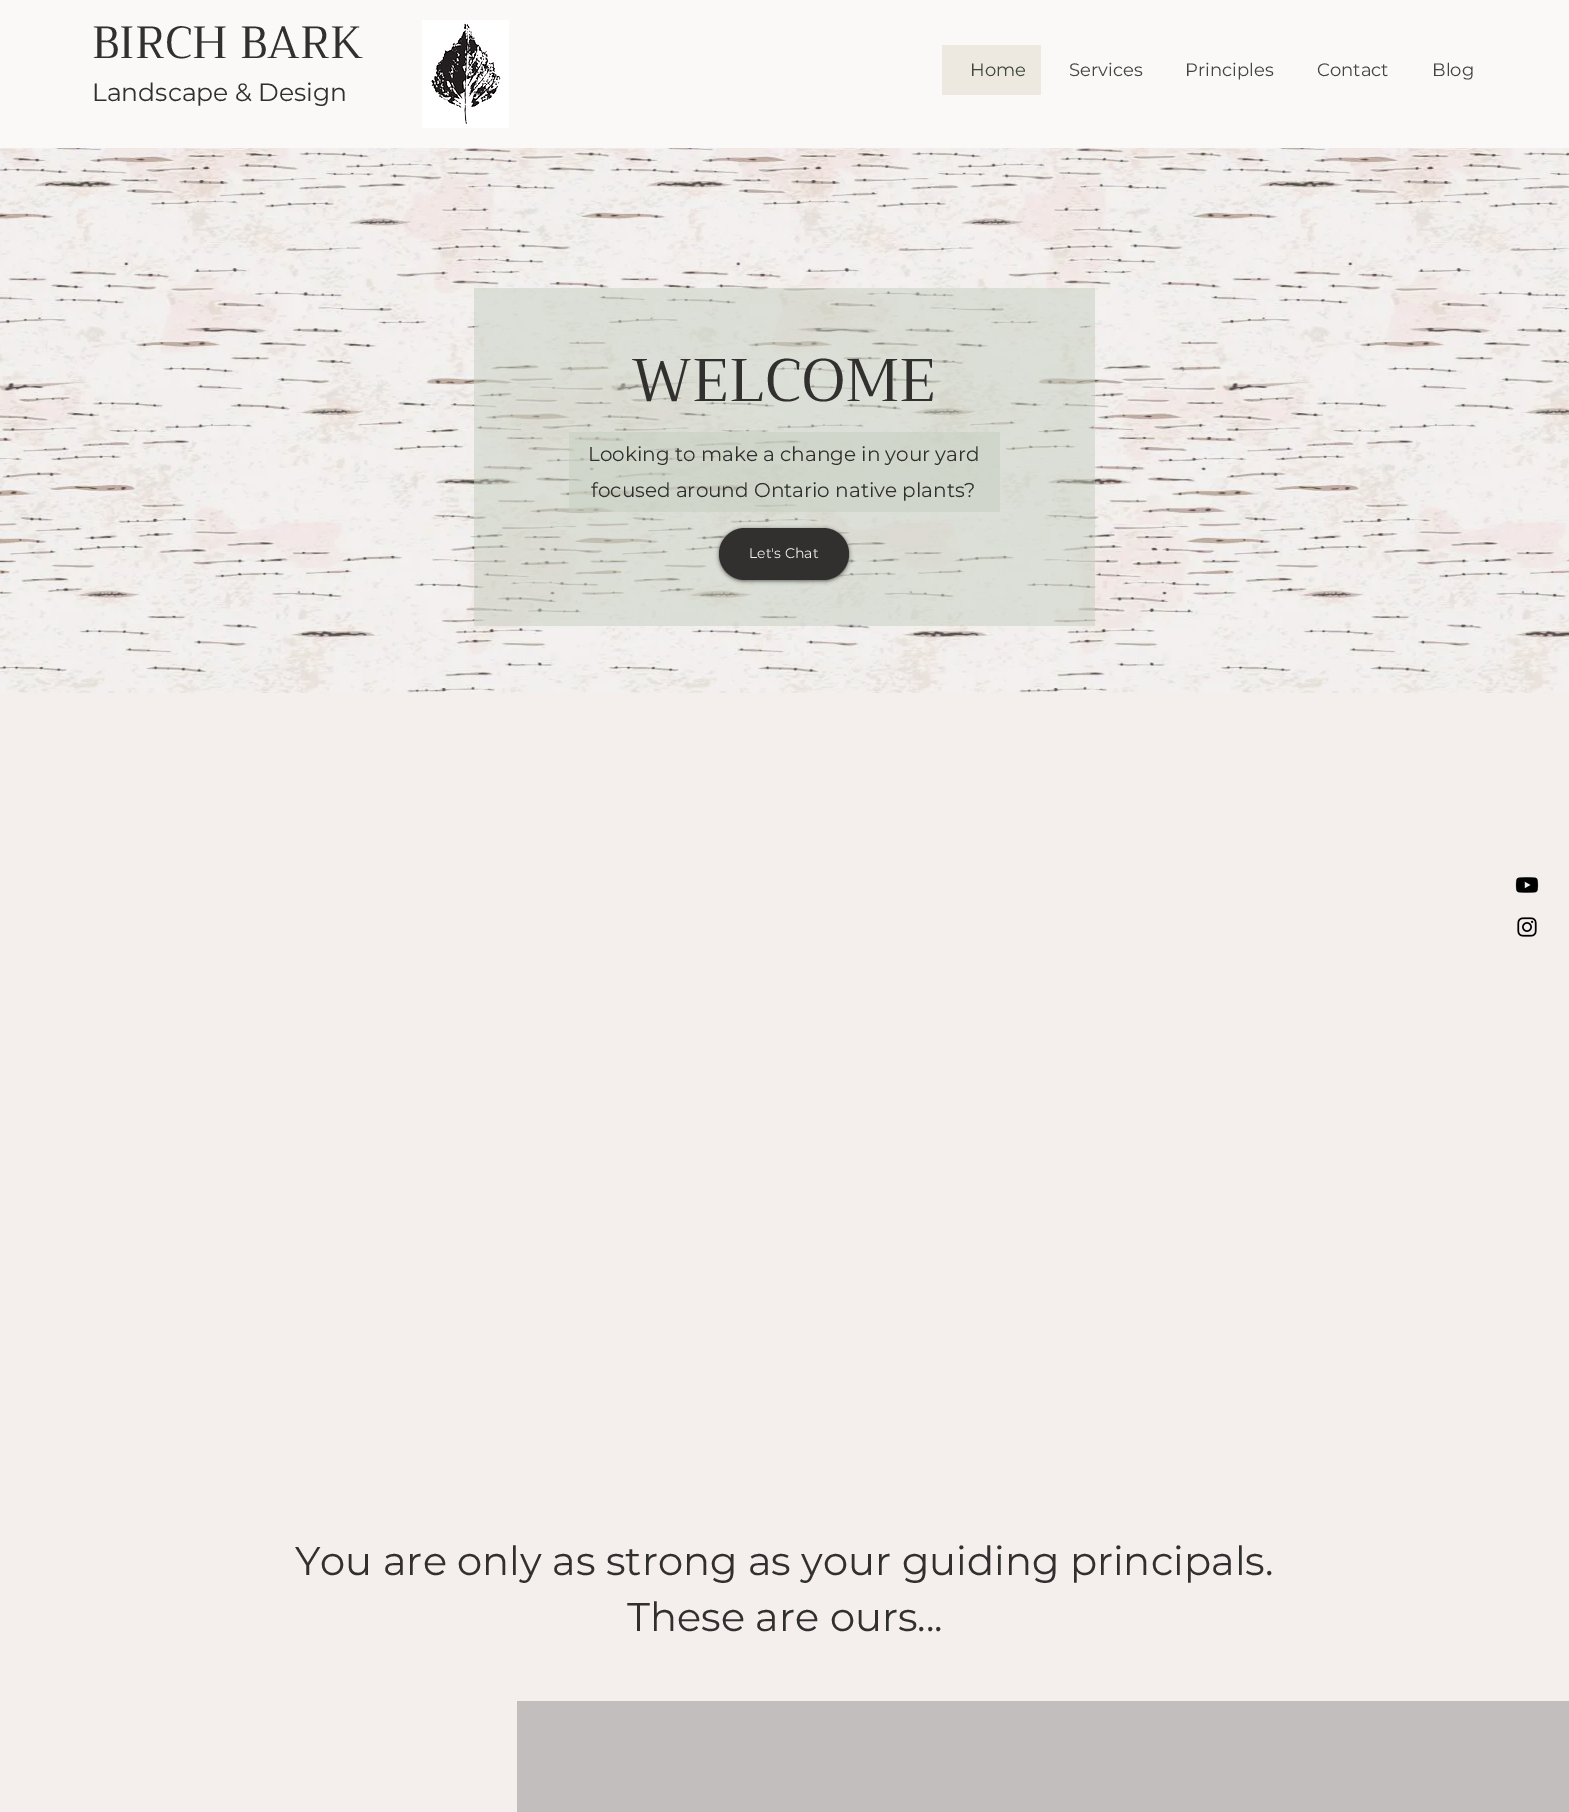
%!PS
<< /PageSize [1569 1812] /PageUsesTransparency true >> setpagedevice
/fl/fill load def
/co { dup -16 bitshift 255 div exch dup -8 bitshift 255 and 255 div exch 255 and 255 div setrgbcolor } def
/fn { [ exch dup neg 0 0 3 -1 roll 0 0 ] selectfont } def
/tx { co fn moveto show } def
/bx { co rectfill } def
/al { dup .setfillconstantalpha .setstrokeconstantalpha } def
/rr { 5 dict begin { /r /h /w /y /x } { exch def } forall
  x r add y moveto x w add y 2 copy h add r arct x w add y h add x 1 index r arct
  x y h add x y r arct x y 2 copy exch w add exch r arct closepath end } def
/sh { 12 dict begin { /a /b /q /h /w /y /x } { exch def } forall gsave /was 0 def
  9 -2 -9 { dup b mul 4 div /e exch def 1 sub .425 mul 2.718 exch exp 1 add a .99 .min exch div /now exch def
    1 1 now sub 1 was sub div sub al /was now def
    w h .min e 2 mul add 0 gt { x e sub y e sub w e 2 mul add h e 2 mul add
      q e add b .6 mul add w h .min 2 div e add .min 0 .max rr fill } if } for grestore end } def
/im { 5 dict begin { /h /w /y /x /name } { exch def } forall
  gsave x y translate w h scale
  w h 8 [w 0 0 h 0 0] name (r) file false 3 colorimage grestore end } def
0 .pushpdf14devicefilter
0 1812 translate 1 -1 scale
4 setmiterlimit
0 0 1569 1812 16#F4EEED bx
0 0 1569 148 16#FBF9F8 bx
(media/1.raw) 422 20 87 108 im
942 45 99 50 16#EDE9E1 bx
(media/2.raw) 0 148 1569 545 im
0.5 al
474 288 621 338 16#C5CEBF bx
569 432 431 80 16#C5CEBF bx
1 al
16#000000 co
719 529 130 52 26 2 .6 sh
16#31302F co
719 528 130 52 26 rr fl
517 1701 1052 111 16#C3BEBE bx
(media/3.raw) 1515 877 24 16 im
(media/4.raw) 1517 917 20 20 im
(BIRCH BARK) 92 58 /Trirong-Regular 45 16#31302F tx
(Landscape & Design) 92 101 /Montserrat-Regular 25 16#31302F tx
(Home) 970 76 /Montserrat-Regular 18 16#3F4939 tx
(Services) 1069 76 /Montserrat-Regular 18 16#444444 tx
(Principles) 1185 76 /Montserrat-Regular 18 16#444444 tx
(Contact) 1317 76 /Montserrat-Regular 18 16#444444 tx
(Blog) 1432 76 /Montserrat-Regular 18 16#444444 tx
(WELCOME) 631 401 /Trirong-Regular 60 16#31302F tx
(Looking to make a change in your yard) 588 461 /Montserrat-Regular 20 16#31302F tx
(focused around Ontario native plants?) 591 497 /Montserrat-Regular 20 16#31302F tx
(Let's Chat) 749 558 /Montserrat-Regular 14 16#F4EEED tx
(You are only as strong as your guiding principals.) 295 1575 /Montserrat-Regular 40 16#31302F tx
(These are ours...) 627 1631 /Montserrat-Regular 40 16#31302F tx
.poppdf14devicefilter showpage
